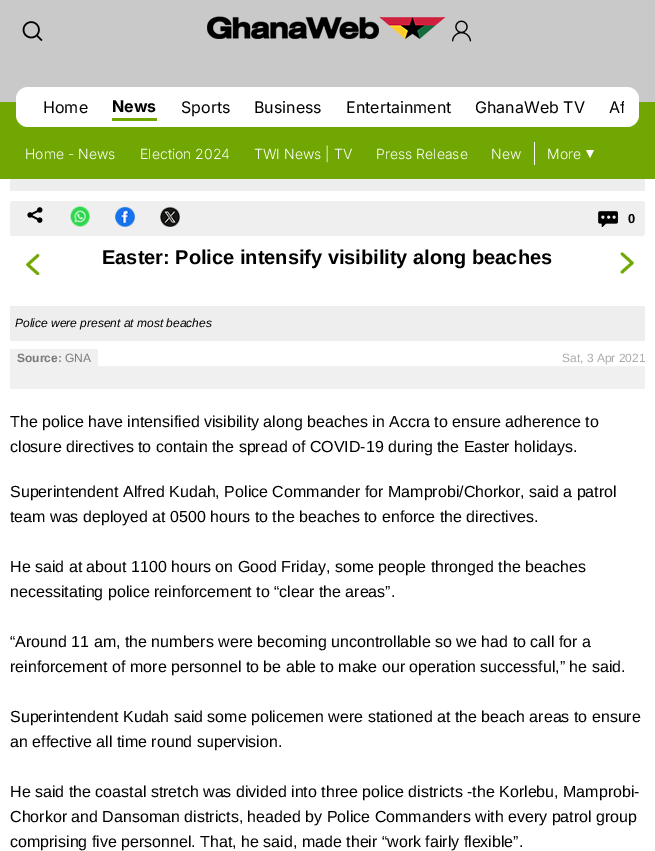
%!PS
<< /PageSize [655 851] >> setpagedevice
/mt/moveto load def
/li/lineto load def
/cp/closepath load def
/fl/fill load def
/gs/gsave load def
/gr/grestore load def
/co { dup -16 bitshift 255 div exch dup -8 bitshift 255 and 255 div exch 255 and 255 div setrgbcolor } def
/fn { [ exch dup neg 0 0 3 -1 roll 0 0 ] selectfont } def
/tx { co fn moveto show } def
/bx { co rectfill } def
/rr { 5 dict begin { /r /h /w /y /x } { exch def } forall
  x r add y moveto x w add y 2 copy h add r arct x w add y h add x 1 index r arct
  x y h add x y r arct x y 2 copy exch w add exch r arct closepath end } def
/im { 5 dict begin { /h /w /y /x /name } { exch def } forall
  gsave x y translate w h scale
  w h 8 [w 0 0 h 0 0] name (r) file false 3 colorimage grestore end } def
0 851 translate 1 -1 scale
4 setmiterlimit
0 0 655 851 16#FFFFFF bx
0 0 655 102 16#C9C9C9 bx
(media/1.raw) 22 21 21 20 im
(media/2.raw) 207 16 239 23 im
(media/3.raw) 452 20 20 22 im
0 102 655 77 16#70A703 bx
16#FFFFFF co
16 87 623 40 12 rr fl
112 118 45 3 16#70A703 bx
534 142 1 23 16#FFFFFF bx
586 150 mt 594 150 li 590 158 li cp fl
10 179 635 12 16#EEEEEE bx
16#EFEFEF co
10 201 635 35 3 rr fl
(media/4.raw) 27 207 16 16 im
(media/5.raw) 70 206 20 21 im
(media/6.raw) 115 206 20 21 im
(media/7.raw) 160 206 20 21 im
(media/8.raw) 598 211 20 16 im
(media/9.raw) 26 253 14 22 im
(media/10.raw) 620 252 14 22 im
10 306 635 35 16#EEEEEE bx
98 366 547 1 16#F2F2F2 bx
10 349 88 18 16#F0F0F0 bx
10 367 635 22 16#F0F0F0 bx
(Home) 43 113 /Inter-Regular 16 16#000000 tx
(News) 112 112 /Inter-Bold 16 16#000000 tx
(Sports) 181 113 /Inter-Regular 16 16#000000 tx
(Business) 254 113 /Inter-Regular 16 16#000000 tx
(Entertainment) 346 113 /Inter-Regular 16 16#000000 tx
(GhanaWeb TV) 475 113 /Inter-Regular 16 16#000000 tx
gs
31 94 593 27 rectclip
(Af) 609 113 /Inter-Regular 16 16#000000 tx
gr
(Home - News) 25 159 /Inter-Light 14 16#FFFFFF tx
(Election 2024) 140 159 /Inter-Light 14 16#FFFFFF tx
(TWI News | TV) 254 159 /Inter-Light 14 16#FFFFFF tx
(Press Release) 376 159 /Inter-Light 14 16#FFFFFF tx
(New) 491 159 /Inter-Light 14 16#FFFFFF tx
(More) 547 159 /Inter-Light 14 16#FFFFFF tx
(0) 628 223 /LiberationSans-Bold 13 16#000000 tx
(Easter: Police intensify visibility along beaches) 102 264 /LiberationSans-Bold 20 16#000000 tx
(Police were present at most beaches) 15 327 /LiberationSans-Italic 12 16#000000 tx
(Source:) 17 362 /LiberationSans-Bold 12 16#7A7A7A tx
(GNA) 65 362 /LiberationSans-Regular 12 16#7A7A7A tx
(Sat, 3 Apr 2021) 562 362 /LiberationSans-Regular 12 16#ABABAB tx
(The police have intensified visibility along beaches in Accra to ensure adherence to) 10 427 /LiberationSans-Regular 16 16#000000 tx
(closure directives to contain the spread of COVID-19 during the Easter holidays.) 10 452 /LiberationSans-Regular 16 16#000000 tx
(Superintendent Alfred Kudah, Police Commander for Mamprobi/Chorkor, said a patrol) 10 497 /LiberationSans-Regular 16 16#000000 tx
(team was deployed at 0500 hours to the beaches to enforce the directives.) 10 522 /LiberationSans-Regular 16 16#000000 tx
(He said at about 1100 hours on Good Friday, some people thronged the beaches) 10 572 /LiberationSans-Regular 16 16#000000 tx
(necessitating police reinforcement to “clear the areas”.) 10 597 /LiberationSans-Regular 16 16#000000 tx
(“Around 11 am, the numbers were becoming uncontrollable so we had to call for a) 10 647 /LiberationSans-Regular 16 16#000000 tx
(reinforcement of more personnel to be able to make our operation successful,” he said.) 10 672 /LiberationSans-Regular 16 16#000000 tx
(Superintendent Kudah said some policemen were stationed at the beach areas to ensure) 10 722 /LiberationSans-Regular 16 16#000000 tx
(an effective all time round supervision.) 10 747 /LiberationSans-Regular 16 16#000000 tx
(He said the coastal stretch was divided into three police districts -the Korlebu, Mamprobi-) 10 797 /LiberationSans-Regular 16 16#000000 tx
(Chorkor and Dansoman districts, headed by Police Commanders with every patrol group) 10 822 /LiberationSans-Regular 16 16#000000 tx
(comprising five personnel. That, he said, made their “work fairly flexible”.) 10 847 /LiberationSans-Regular 16 16#000000 tx
showpage
